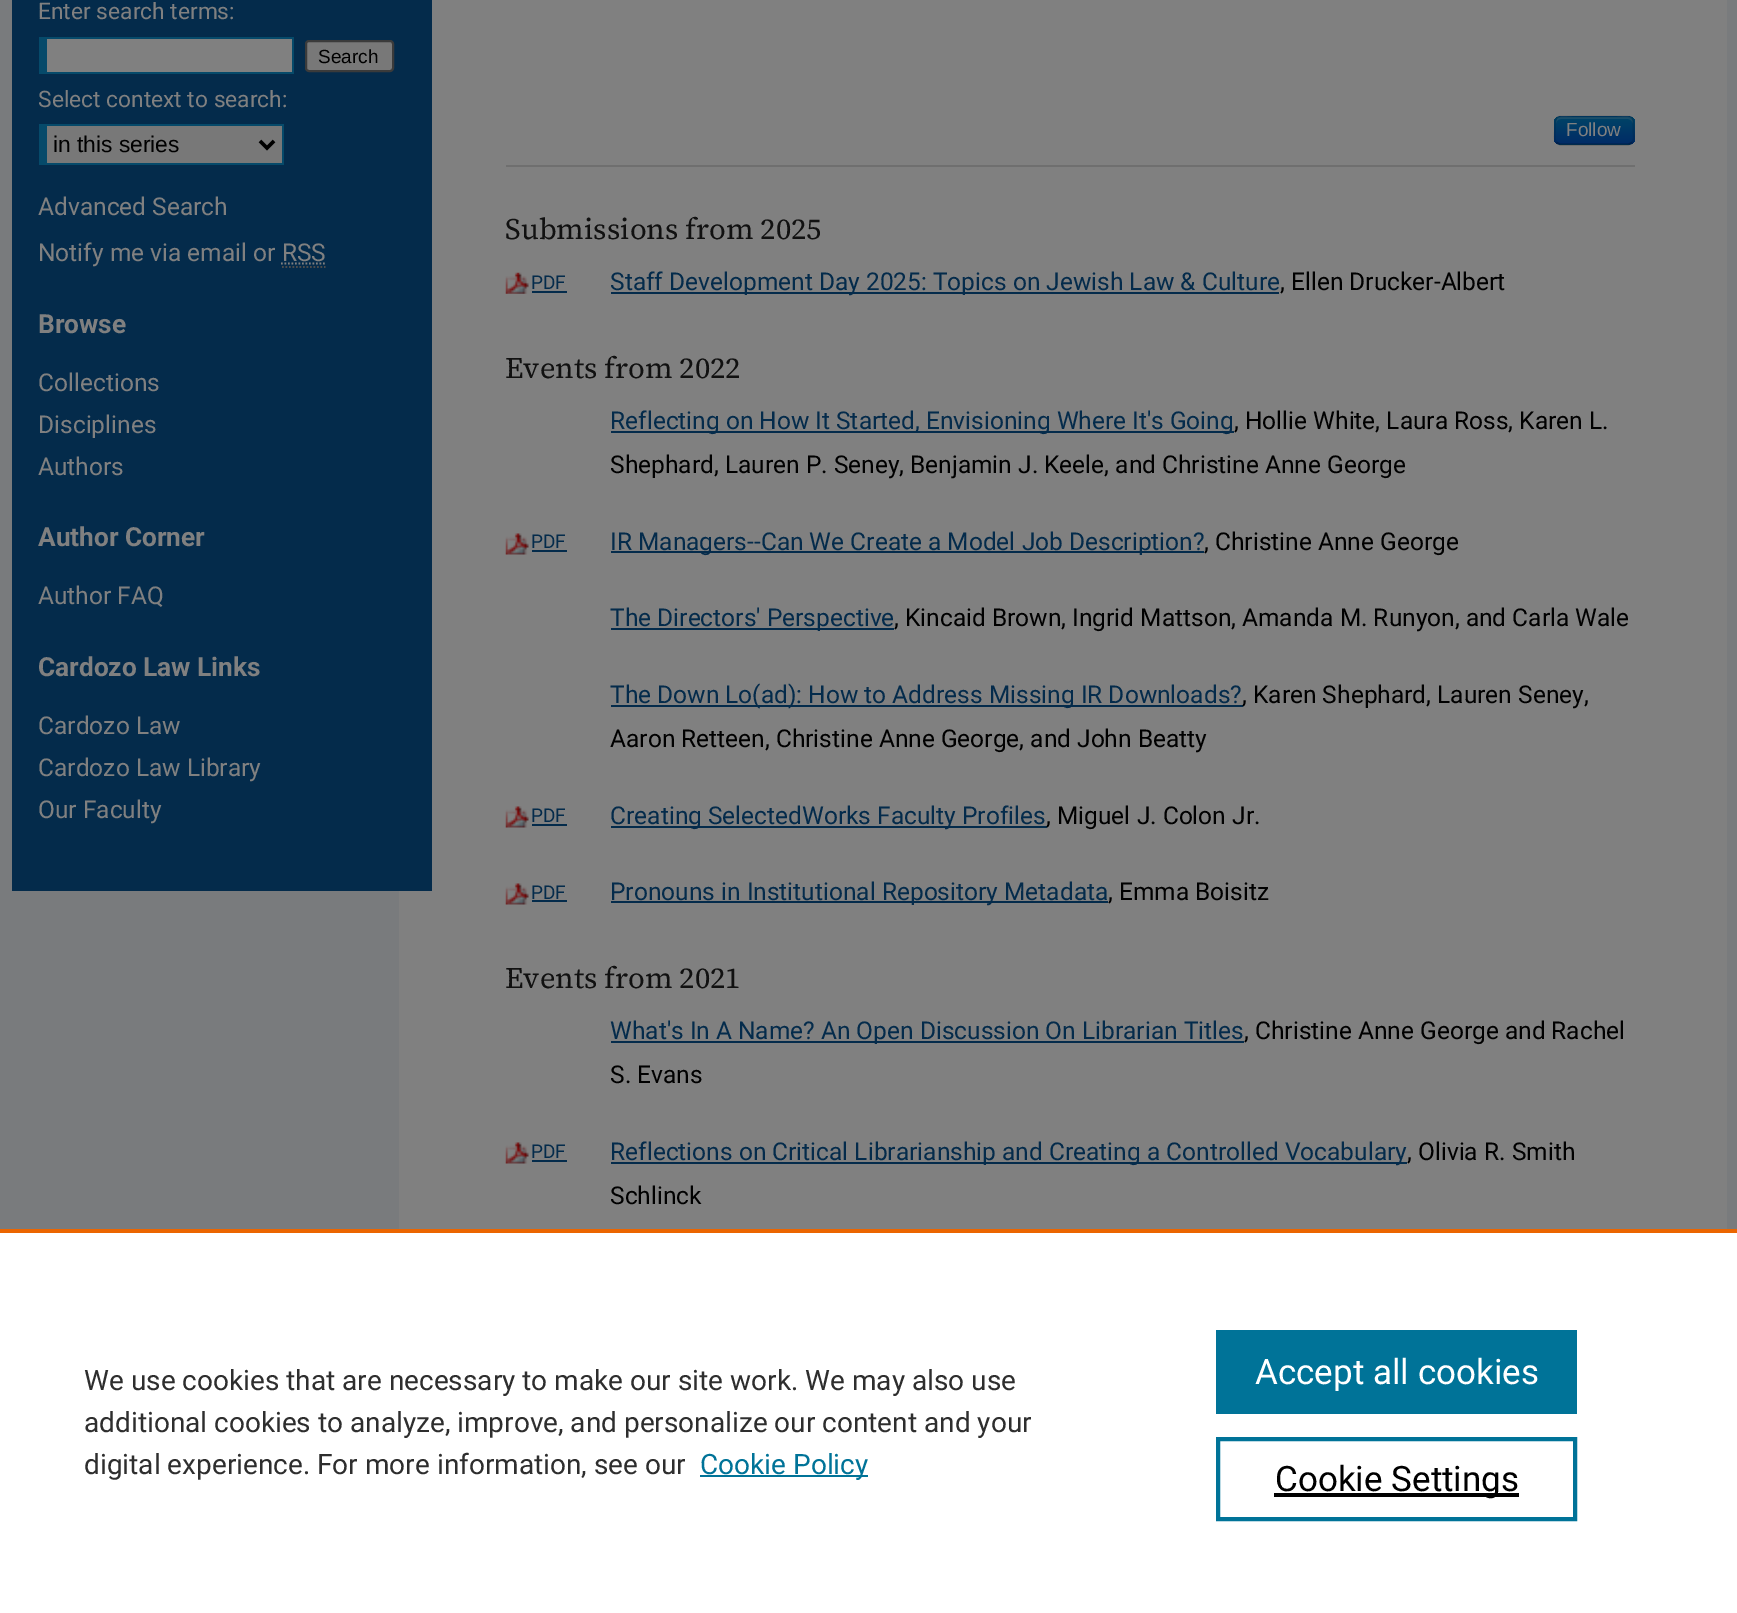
%!PS
<< /PageSize [1737 1613] /PageUsesTransparency true >> setpagedevice
/mt/moveto load def
/li/lineto load def
/ct/curveto load def
/cp/closepath load def
/fl/fill load def
/st/stroke load def
/gs/gsave load def
/gr/grestore load def
/lw/setlinewidth load def
/co { dup -16 bitshift 255 div exch dup -8 bitshift 255 and 255 div exch 255 and 255 div setrgbcolor } def
/fn { [ exch dup neg 0 0 3 -1 roll 0 0 ] selectfont } def
/tx { co fn moveto show } def
/bx { co rectfill } def
/al { dup .setfillconstantalpha .setstrokeconstantalpha } def
/rr { 5 dict begin { /r /h /w /y /x } { exch def } forall
  x r add y moveto x w add y 2 copy h add r arct x w add y h add x 1 index r arct
  x y h add x y r arct x y 2 copy exch w add exch r arct closepath end } def
/im { 5 dict begin { /h /w /y /x /name } { exch def } forall
  gsave x y translate w h scale
  w h 8 [w 0 0 h 0 0] name (r) file false 3 colorimage grestore end } def
0 .pushpdf14devicefilter
0 1613 translate 1 -1 scale
4 setmiterlimit
0 0 1737 1613 16#797B7D bx
399 0 1328 1229 16#808080 bx
12 0 420 891 16#042B4B bx
47 39 245 33 16#808080 bx
39 37 255 2 16#064A6A bx
292 37 2 37 16#064A6A bx
39 72 255 2 16#064A6A bx
39 37 8 37 16#064A6A bx
16#787878 co
306 41 87 30 3 rr gs fl gr
16#3B3B3B co
2 lw
st
47 126 235 37 16#787878 bx
39 124 245 2 16#064A6A bx
282 124 2 41 16#064A6A bx
39 163 245 2 16#064A6A bx
39 124 8 41 16#064A6A bx
16#000000 co
3.5 lw
260 141 mt 267 148 li 274 141 li st
16#808080 co
1.8 lw
[1.75 1.75] 0 setdash
281 263.5 mt 325.5 263.5 li st
506 165 1129 2 16#6F6F6F bx
16#003A66 co
1554 116 81 29 7 rr fl
gs
1554 116 81 29 7 rr clip newpath
gs 1554 117 mt 1635 117 li 1635 144 li 1554 144 li cp clip newpath
<< /ShadingType 2 /ColorSpace /DeviceRGB /Coords [1594 117 1594 144] /Extend [true true] /Function << /FunctionType 2 /Domain [0 1] /C0 [0 .267 .4] /C1 [0 .169 .4] /N 1 >> >> shfill gr
gr
0.2 al
16#808080 co
1561 119 mt 1628 119 li 1630 119 1633 121 1633 124 ct 1633 114 1625 117 1617 117 ct 1572 117 li 1564 117 1556 114 1556 124 ct 1556 121 1558 119 1561 119 ct cp fl
0.25 al
16#000000 co
[] 0 setdash
1632 142.5 mt 1630.5 143.5 1629 144.5 1627.5 144.5 ct 1561 144.5 li 1559.5 144.5 1558 143.5 1556.5 142.5 ct st
0.1 al
1556.5 142.5 mt 1553.5 139.5 1555 134 1555 130.5 ct 1555 114.5 1555.5 116.5 1572 116.5 ct 1616.5 116.5 li 1633 116.5 1633.5 114.5 1633.5 130.5 ct 1633.5 134 1635 139.5 1632 142.5 ct st
1 al
(media/1.raw) 505 272 24 22 im
532 291 35 2 16#042B4B bx
611 292 668 2 16#042B4B bx
611 431 623 2 16#042B4B bx
(media/2.raw) 505 533 24 22 im
532 550 35 2 16#042B4B bx
611 551 593 2 16#042B4B bx
611 628 283 2 16#042B4B bx
611 705 632 2 16#042B4B bx
(media/2.raw) 505 806 24 22 im
532 824 35 2 16#042B4B bx
611 826 436 2 16#042B4B bx
(media/2.raw) 505 883 24 22 im
532 900 35 2 16#042B4B bx
611 901 497 2 16#042B4B bx
611 1041 633 2 16#042B4B bx
(media/2.raw) 505 1142 24 22 im
532 1160 35 2 16#042B4B bx
611 1162 796 2 16#042B4B bx
0 1233 1737 380 16#FFFFFF bx
0 1229 1737 4 16#EB6500 bx
700 1475 168 2 16#007398 bx
1216 1330 361 84 16#007398 bx
4 lw
1218 1439 357 80 rectstroke
1274 1493 245 4 16#000000 bx
(Enter search terms:) 38 19 /Roboto-Regular 22.75 16#808080 tx
(Search) 318 63 /LiberationSans-Regular 19 16#000000 tx
(Select context to search:) 38 107 /Roboto-Regular 22.75 16#808080 tx
(in this series) 53 152 /LiberationSans-Regular 22.75 16#000000 tx
(Advanced Search) 38 215 /Roboto-Regular 24.5 16#808080 tx
(Notify me via email or RSS) 38 261 /Roboto-Regular 24.5 16#808080 tx
16#4D4D4D co
1.8 lw
[1.75 1.75] 0 setdash
282 267 mt 325.5 267 li st
(Browse) 38 333 /Roboto-Bold 26.25 16#808080 tx
(Collections) 38 391 /Roboto-Regular 24.5 16#808080 tx
(Disciplines) 38 433 /Roboto-Regular 24.5 16#808080 tx
(Authors) 38 475 /Roboto-Regular 24.5 16#808080 tx
(Author Corner) 38 546 /Roboto-Bold 26.25 16#808080 tx
(Author FAQ) 38 604 /Roboto-Regular 24.5 16#808080 tx
(Cardozo Law Links) 38 676 /Roboto-Bold 26.25 16#808080 tx
(Cardozo Law) 38 734 /Roboto-Regular 24.5 16#808080 tx
(Cardozo Law Library) 38 776 /Roboto-Regular 24.5 16#808080 tx
(Our Faculty) 38 818 /Roboto-Regular 24.5 16#808080 tx
(Follow) 1566 136 /LiberationSans-Regular 19 16#808080 tx
(Submissions from 2025) 505 239 /SourceSerif4-Regular 29.75 16#111111 tx
(PDF) 531 289 /Roboto-Regular 19 16#042B4B tx
(Staff Development Day 2025: Topics on Jewish Law & Culture) 610 290 /Roboto-Regular 24.5 16#042B4B tx
(, Ellen Drucker-Albert) 1280 290 /Roboto-Regular 24.5 16#000000 tx
(Events from 2022) 505 378 /SourceSerif4-Regular 29.75 16#111111 tx
(Reflecting on How It Started, Envisioning Where It's Going) 610 429 /Roboto-Regular 24.5 16#042B4B tx
(, Hollie White, Laura Ross, Karen L.) 1234 429 /Roboto-Regular 24.5 16#000000 tx
(Shephard, Lauren P. Seney, Benjamin J. Keele, and Christine Anne George) 610 473 /Roboto-Regular 24.5 16#000000 tx
(PDF) 531 548 /Roboto-Regular 19 16#042B4B tx
(IR Managers--Can We Create a Model Job Description?) 610 550 /Roboto-Regular 24.5 16#042B4B tx
(, Christine Anne George) 1204 550 /Roboto-Regular 24.5 16#000000 tx
(The Directors' Perspective) 610 626 /Roboto-Regular 24.5 16#042B4B tx
(, Kincaid Brown, Ingrid Mattson, Amanda M. Runyon, and Carla Wale) 894 626 /Roboto-Regular 24.5 16#000000 tx
(The Down Lo\(ad\): How to Address Missing IR Downloads?) 610 703 /Roboto-Regular 24.5 16#042B4B tx
(, Karen Shephard, Lauren Seney,) 1242 703 /Roboto-Regular 24.5 16#000000 tx
(Aaron Retteen, Christine Anne George, and John Beatty) 610 747 /Roboto-Regular 24.5 16#000000 tx
(PDF) 531 822 /Roboto-Regular 19 16#042B4B tx
(Creating SelectedWorks Faculty Profiles) 610 824 /Roboto-Regular 24.5 16#042B4B tx
(, Miguel J. Colon Jr.) 1046 824 /Roboto-Regular 24.5 16#000000 tx
(PDF) 531 899 /Roboto-Regular 19 16#042B4B tx
(Pronouns in Institutional Repository Metadata) 610 900 /Roboto-Regular 24.5 16#042B4B tx
(, Emma Boisitz) 1108 900 /Roboto-Regular 24.5 16#000000 tx
(Events from 2021) 505 988 /SourceSerif4-Regular 29.75 16#111111 tx
(What's In A Name? An Open Discussion On Librarian Titles) 610 1039 /Roboto-Regular 24.5 16#042B4B tx
(, Christine Anne George and Rachel) 1244 1039 /Roboto-Regular 24.5 16#000000 tx
(S. Evans) 610 1083 /Roboto-Regular 24.5 16#000000 tx
(PDF) 531 1158 /Roboto-Regular 19 16#042B4B tx
(Reflections on Critical Librarianship and Creating a Controlled Vocabulary) 610 1160 /Roboto-Regular 24.5 16#042B4B tx
(, Olivia R. Smith) 1407 1160 /Roboto-Regular 24.5 16#000000 tx
(Schlinck) 610 1204 /Roboto-Regular 24.5 16#000000 tx
(We use cookies that are necessary to make our site work. We may also use) 84 1390 /Roboto-Regular 28 16#2E2E2E tx
(additional cookies to analyze, improve, and personalize our content and your) 84 1432 /Roboto-Regular 28 16#2E2E2E tx
(digital experience. For more information, see our) 84 1474 /Roboto-Regular 28 16#2E2E2E tx
(Cookie Policy) 700 1474 /Roboto-Regular 28 16#007398 tx
(Accept all cookies) 1255 1384 /Roboto-Regular 35 16#FFFFFF tx
(Cookie Settings) 1275 1491 /Roboto-Regular 35 16#000000 tx
.poppdf14devicefilter showpage
